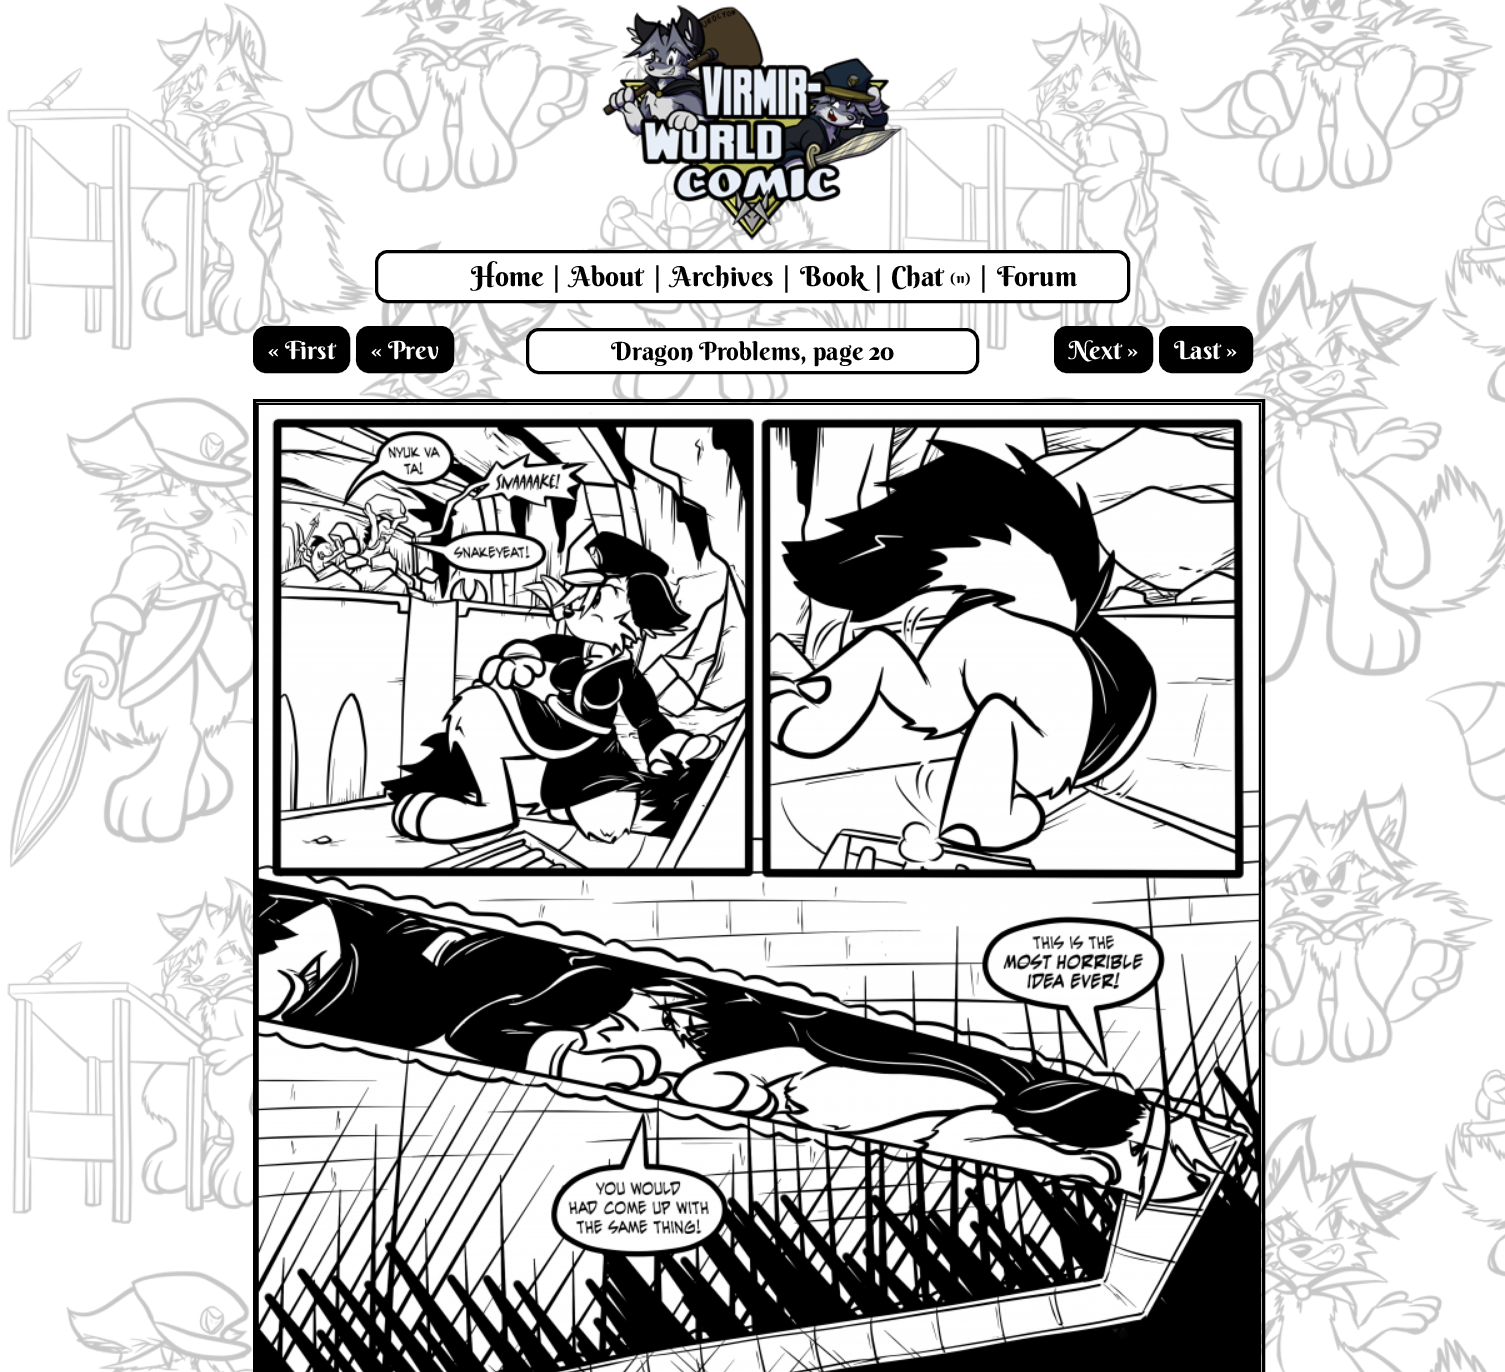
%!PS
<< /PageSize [1505 1372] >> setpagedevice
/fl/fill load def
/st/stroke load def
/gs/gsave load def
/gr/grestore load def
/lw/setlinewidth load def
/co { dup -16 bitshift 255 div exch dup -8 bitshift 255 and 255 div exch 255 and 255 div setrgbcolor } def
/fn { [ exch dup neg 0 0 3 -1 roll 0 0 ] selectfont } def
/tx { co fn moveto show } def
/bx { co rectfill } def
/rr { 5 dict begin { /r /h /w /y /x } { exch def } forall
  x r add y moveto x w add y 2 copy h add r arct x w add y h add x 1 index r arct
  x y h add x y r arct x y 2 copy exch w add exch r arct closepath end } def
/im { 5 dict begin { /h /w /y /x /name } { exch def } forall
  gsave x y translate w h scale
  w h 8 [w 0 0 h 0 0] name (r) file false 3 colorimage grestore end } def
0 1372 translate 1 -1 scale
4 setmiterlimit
0 0 1505 1372 16#FFFFFF bx
(media/1.raw) 7 0 1498 1372 im
(media/2.raw) 602 4 301 237 im
376.5 251.5 752 50 11.5 rr gs fl gr
16#000000 co
3 lw
st
254.5 327.5 94 44 11.5 rr gs fl gr
st
357.5 327.5 95 44 11.5 rr gs fl gr
st
16#FFFFFF co
527.5 329.5 450 43 11.5 rr gs fl gr
16#000000 co
st
1055.5 327.5 96 44 11.5 rr gs fl gr
st
1160.5 327.5 91 44 11.5 rr gs fl gr
st
254.5 400.5 1009 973 rectstroke
257.5 404.5 1002 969 rectstroke
(media/3.raw) 258 405 1001 967 im
(Home) 471 286 /BerkshireSwash-Regular 27.5 16#000000 tx
(|) 553 286 /BerkshireSwash-Regular 27.5 16#000000 tx
(About) 570 286 /BerkshireSwash-Regular 27.5 16#000000 tx
(|) 654 286 /BerkshireSwash-Regular 27.5 16#000000 tx
(Archives) 671 286 /BerkshireSwash-Regular 27.5 16#000000 tx
(|) 783 286 /BerkshireSwash-Regular 27.5 16#000000 tx
(Book) 800 286 /BerkshireSwash-Regular 27.5 16#000000 tx
(|) 875 286 /BerkshireSwash-Regular 27.5 16#000000 tx
(Chat) 891 286 /BerkshireSwash-Regular 27.5 16#000000 tx
(\(11\)) 950 283 /BerkshireSwash-Regular 14 16#000000 tx
(|) 980 286 /BerkshireSwash-Regular 27.5 16#000000 tx
(Forum) 997 286 /BerkshireSwash-Regular 27.5 16#000000 tx
(« First) 268 359 /BerkshireSwash-Regular 25 16#FFFFFF tx
(« Prev) 371 359 /BerkshireSwash-Regular 25 16#FFFFFF tx
(Dragon Problems, page 20) 611 360 /BerkshireSwash-Regular 25 16#000000 tx
(Next ») 1069 359 /BerkshireSwash-Regular 25 16#FFFFFF tx
(Last ») 1174 359 /BerkshireSwash-Regular 25 16#FFFFFF tx
showpage
